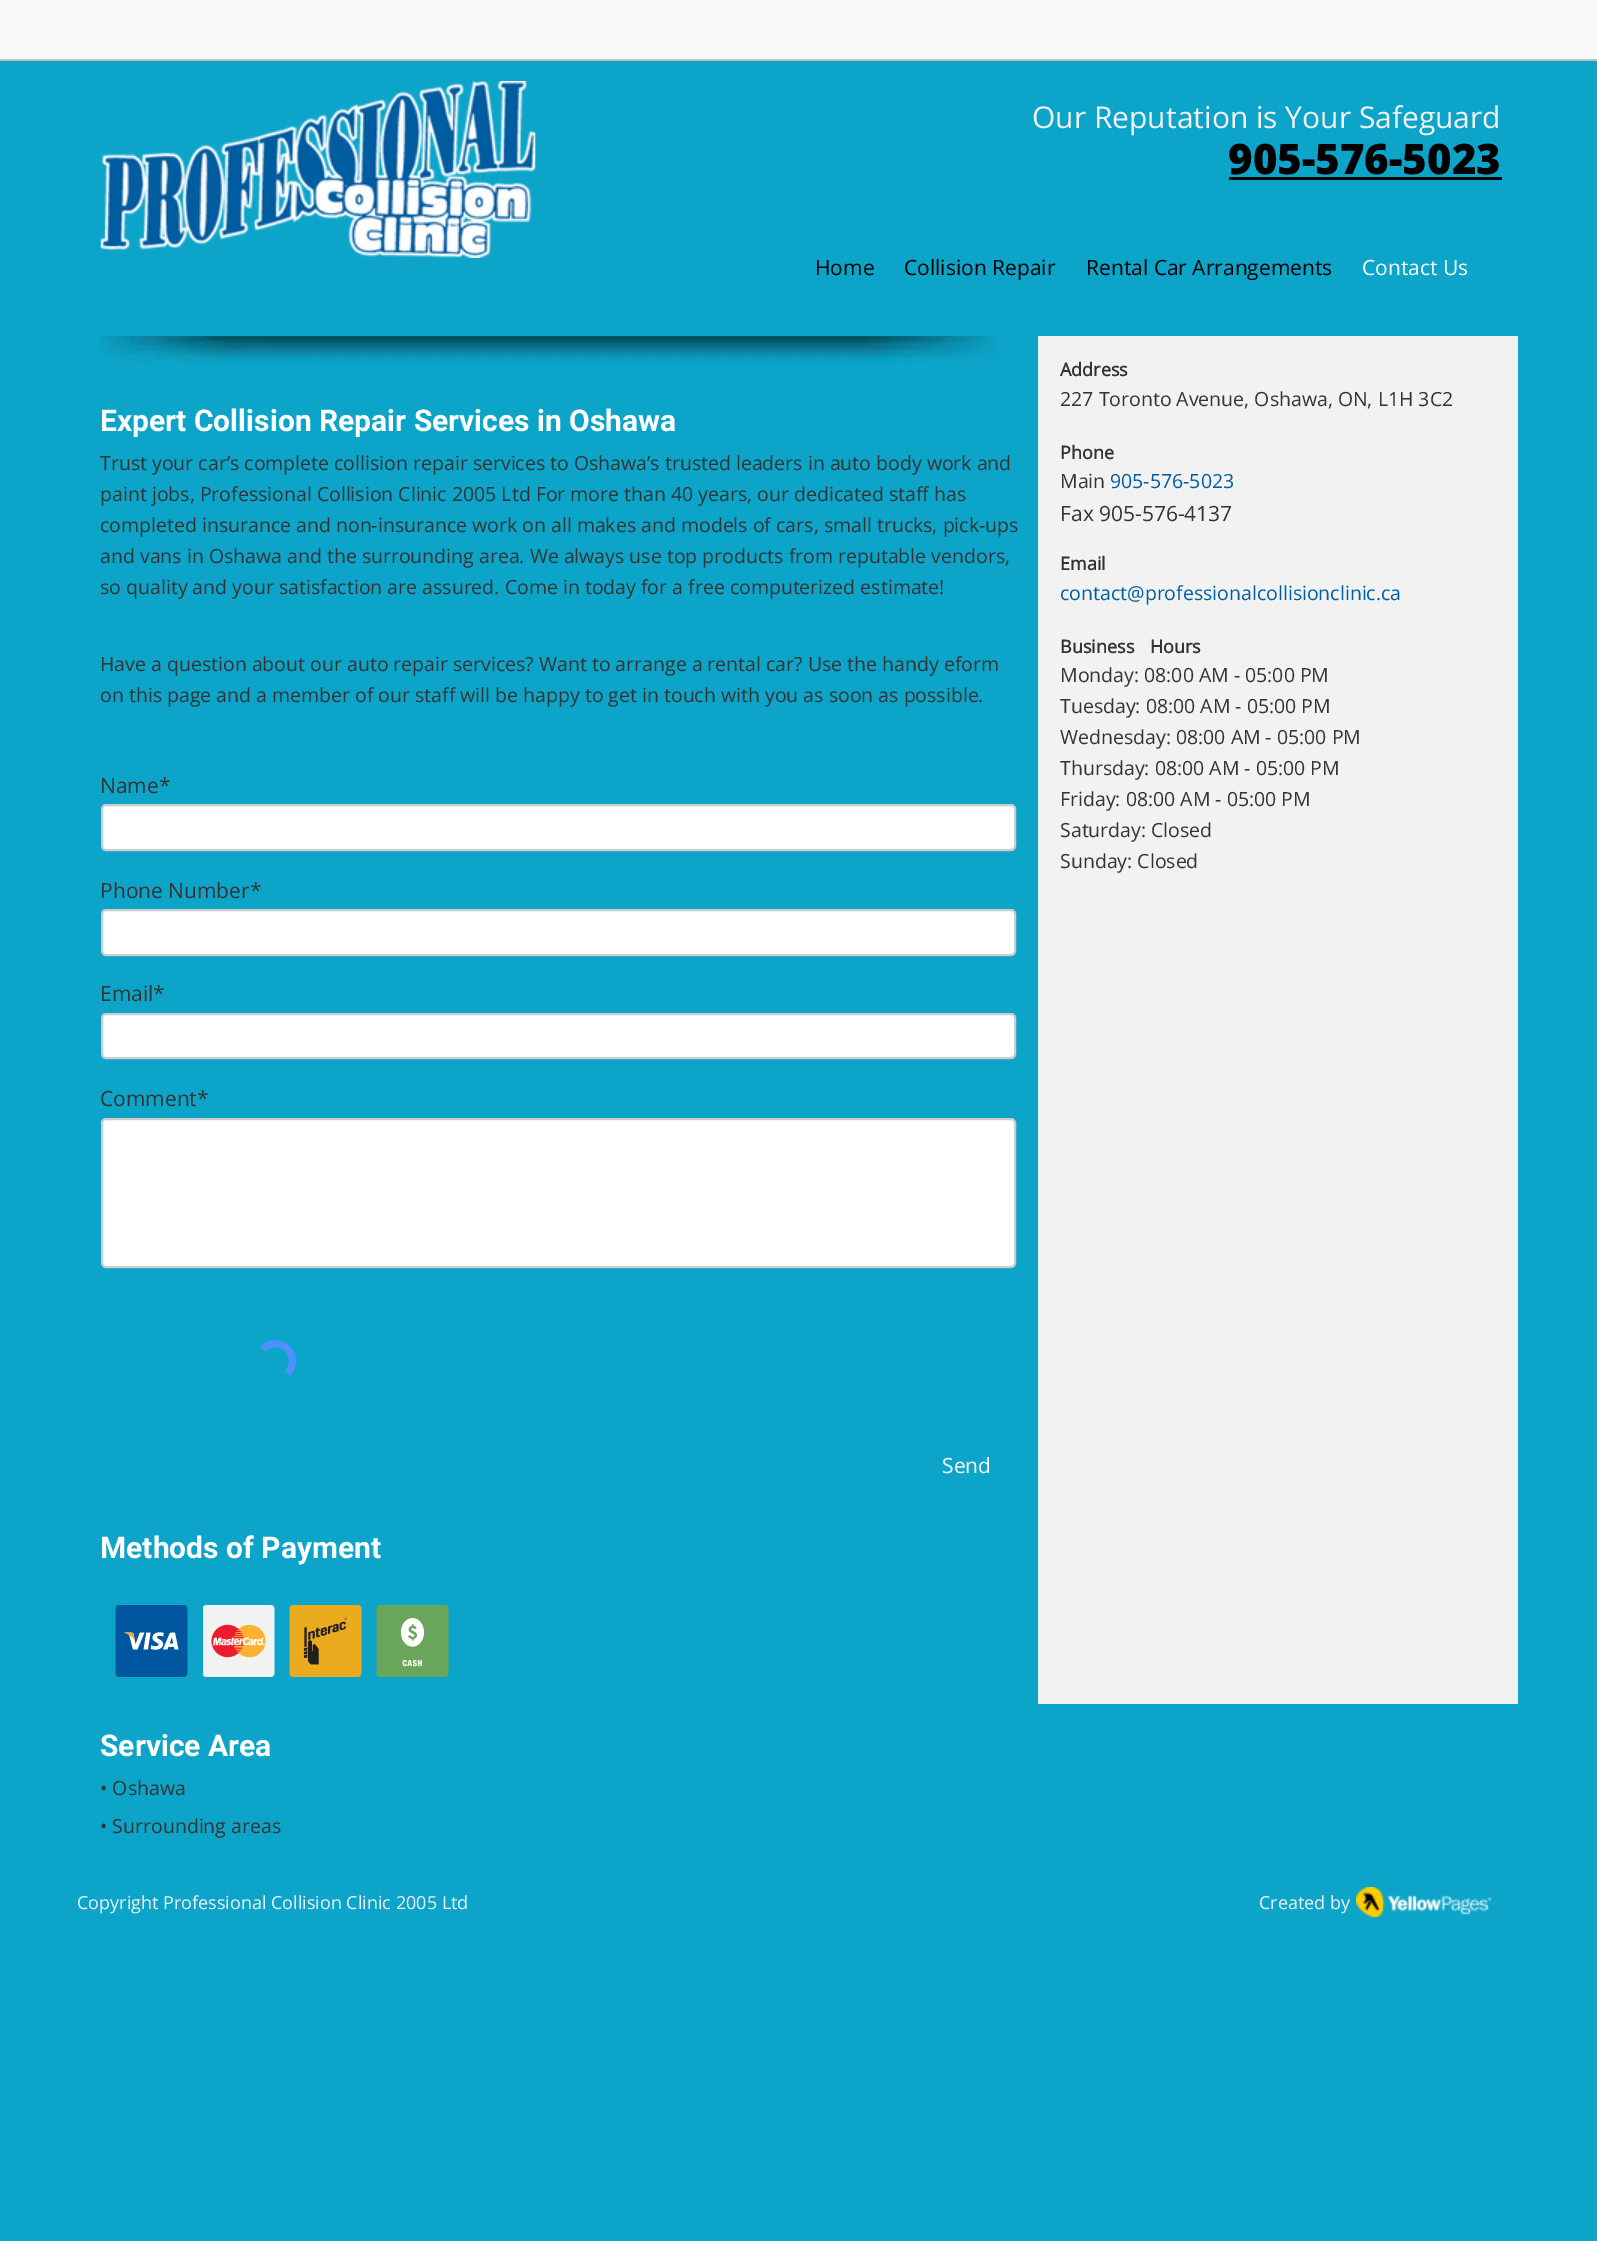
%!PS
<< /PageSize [1597 2241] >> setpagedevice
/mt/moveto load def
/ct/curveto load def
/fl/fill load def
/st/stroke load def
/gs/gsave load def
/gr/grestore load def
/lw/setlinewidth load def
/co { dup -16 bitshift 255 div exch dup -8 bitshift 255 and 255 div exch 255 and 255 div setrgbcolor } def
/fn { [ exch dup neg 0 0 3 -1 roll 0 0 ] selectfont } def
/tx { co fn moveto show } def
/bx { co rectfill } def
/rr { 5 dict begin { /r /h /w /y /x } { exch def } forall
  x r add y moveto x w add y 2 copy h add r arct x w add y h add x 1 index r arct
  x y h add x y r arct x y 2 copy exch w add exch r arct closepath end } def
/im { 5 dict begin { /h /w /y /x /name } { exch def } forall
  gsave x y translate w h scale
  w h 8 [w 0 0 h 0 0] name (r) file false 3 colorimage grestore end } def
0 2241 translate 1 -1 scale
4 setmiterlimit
0 0 1597 2241 16#0CA5C9 bx
0 0 1597 59 16#F8F8F8 bx
0 59 1597 2 16#BFBFBF bx
(media/1.raw) 100 81 436 177 im
1229 177 273 3 16#000000 bx
(media/2.raw) 101 336 897 28 im
16#FFFFFF co
102 805 913 45 4 rr gs fl gr
16#CCCCCC co
2 lw
st
16#FFFFFF co
102 910 913 45 4 rr gs fl gr
16#CCCCCC co
st
16#FFFFFF co
102 1014 913 44 4 rr gs fl gr
16#CCCCCC co
st
16#FFFFFF co
102 1119 913 148 4 rr gs fl gr
16#CCCCCC co
st
16#4D90FE co
6.9 lw
263 1349 mt 265.5 1346.5 268.5 1344.5 272 1344 ct 288.5 1340.5 299.5 1361.5 287.5 1373.5 ct st
(media/3.raw) 115 1605 73 72 im
(media/4.raw) 203 1605 72 72 im
(media/5.raw) 289 1605 73 72 im
(media/6.raw) 376 1605 73 72 im
1038 336 480 1368 16#F2F2F2 bx
(media/7.raw) 1356 1887 136 30 im
(Our Reputation is Your Safeguard) 1032 128 /OpenSans-Regular 30 16#F2F2F2 tx
(905-576-5023) 1228 174 /OpenSans-ExtraBold 42 16#000000 tx
(Home) 815 275 /OpenSans-Regular 21 16#000000 tx
(Collision Repair) 904 275 /OpenSans-Regular 21 16#000000 tx
(Rental Car Arrangements) 1086 275 /OpenSans-Regular 21 16#000000 tx
(Contact Us) 1362 275 /OpenSans-Regular 21 16#FFFFFF tx
(Expert Collision Repair Services in Oshawa) 100 431 /Roboto-Bold 30 16#FFFFFF tx
(Trust your car’s complete collision repair services to Oshawa’s trusted leaders in auto body work and) 100 470 /OpenSans-Regular 19.5 16#333333 tx
(paint jobs, Professional Collision Clinic 2005 Ltd For more than 40 years, our dedicated staff has) 100 501 /OpenSans-Regular 19.5 16#333333 tx
(completed insurance and non-insurance work on all makes and models of cars, small trucks, pick-ups) 100 532 /OpenSans-Regular 19.5 16#333333 tx
(and vans in Oshawa and the surrounding area. We always use top products from reputable vendors,) 100 563 /OpenSans-Regular 19.5 16#333333 tx
(so quality and your satisfaction are assured. Come in today for a free computerized estimate!) 100 594 /OpenSans-Regular 19.5 16#333333 tx
(Have a question about our auto repair services? Want to arrange a rental car? Use the handy eform) 100 671 /OpenSans-Regular 19.5 16#333333 tx
(on this page and a member of our staff will be happy to get in touch with you as soon as possible.) 100 702 /OpenSans-Regular 19.5 16#333333 tx
(Name*) 100 793 /OpenSans-Regular 21 16#333333 tx
(Phone Number*) 100 898 /OpenSans-Regular 21 16#333333 tx
(Email*) 100 1001 /OpenSans-Regular 21 16#333333 tx
(Comment*) 100 1106 /OpenSans-Regular 21 16#333333 tx
(Send) 942 1473 /OpenSans-Regular 21 16#FFFFFF tx
(Methods of Payment) 100 1558 /Roboto-Bold 30 16#FFFFFF tx
(Service Area) 100 1756 /Roboto-Bold 30 16#FFFFFF tx
(• Oshawa) 100 1795 /OpenSans-Regular 19.5 16#333333 tx
(• Surrounding areas) 100 1833 /OpenSans-Regular 19.5 16#333333 tx
(Address) 1060 376 /OpenSans-Bold 18 16#333333 tx
(227 Toronto Avenue, Oshawa, ON, L1H 3C2) 1060 406 /OpenSans-Regular 19.5 16#333333 tx
(Phone) 1060 459 /OpenSans-Bold 18 16#333333 tx
(Main) 1060 488 /OpenSans-Regular 19.5 16#333333 tx
(905-576-5023) 1110 488 /OpenSans-Regular 19.5 16#005EA0 tx
(Fax 905-576-4137) 1060 521 /OpenSans-Regular 21 16#333333 tx
(Email) 1060 570 /OpenSans-Bold 18 16#333333 tx
(contact@professionalcollisionclinic.ca) 1060 600 /OpenSans-Regular 19.5 16#005EA0 tx
/OpenSans-Bold 18 fn
16#333333 co
1060 653 mt 11 0 32 (Business Hours) widthshow
(Monday: 08:00 AM - 05:00 PM) 1060 682 /OpenSans-Regular 19.5 16#333333 tx
(Tuesday: 08:00 AM - 05:00 PM) 1060 713 /OpenSans-Regular 19.5 16#333333 tx
(Wednesday: 08:00 AM - 05:00 PM) 1060 744 /OpenSans-Regular 19.5 16#333333 tx
(Thursday: 08:00 AM - 05:00 PM) 1060 775 /OpenSans-Regular 19.5 16#333333 tx
(Friday: 08:00 AM - 05:00 PM) 1060 806 /OpenSans-Regular 19.5 16#333333 tx
(Saturday: Closed) 1060 837 /OpenSans-Regular 19.5 16#333333 tx
(Sunday: Closed) 1060 868 /OpenSans-Regular 19.5 16#333333 tx
(Copyright Professional Collision Clinic 2005 Ltd) 77 1909 /OpenSans-Regular 18 16#F2F2F2 tx
(Created by) 1259 1909 /OpenSans-Regular 18 16#F2F2F2 tx
showpage
